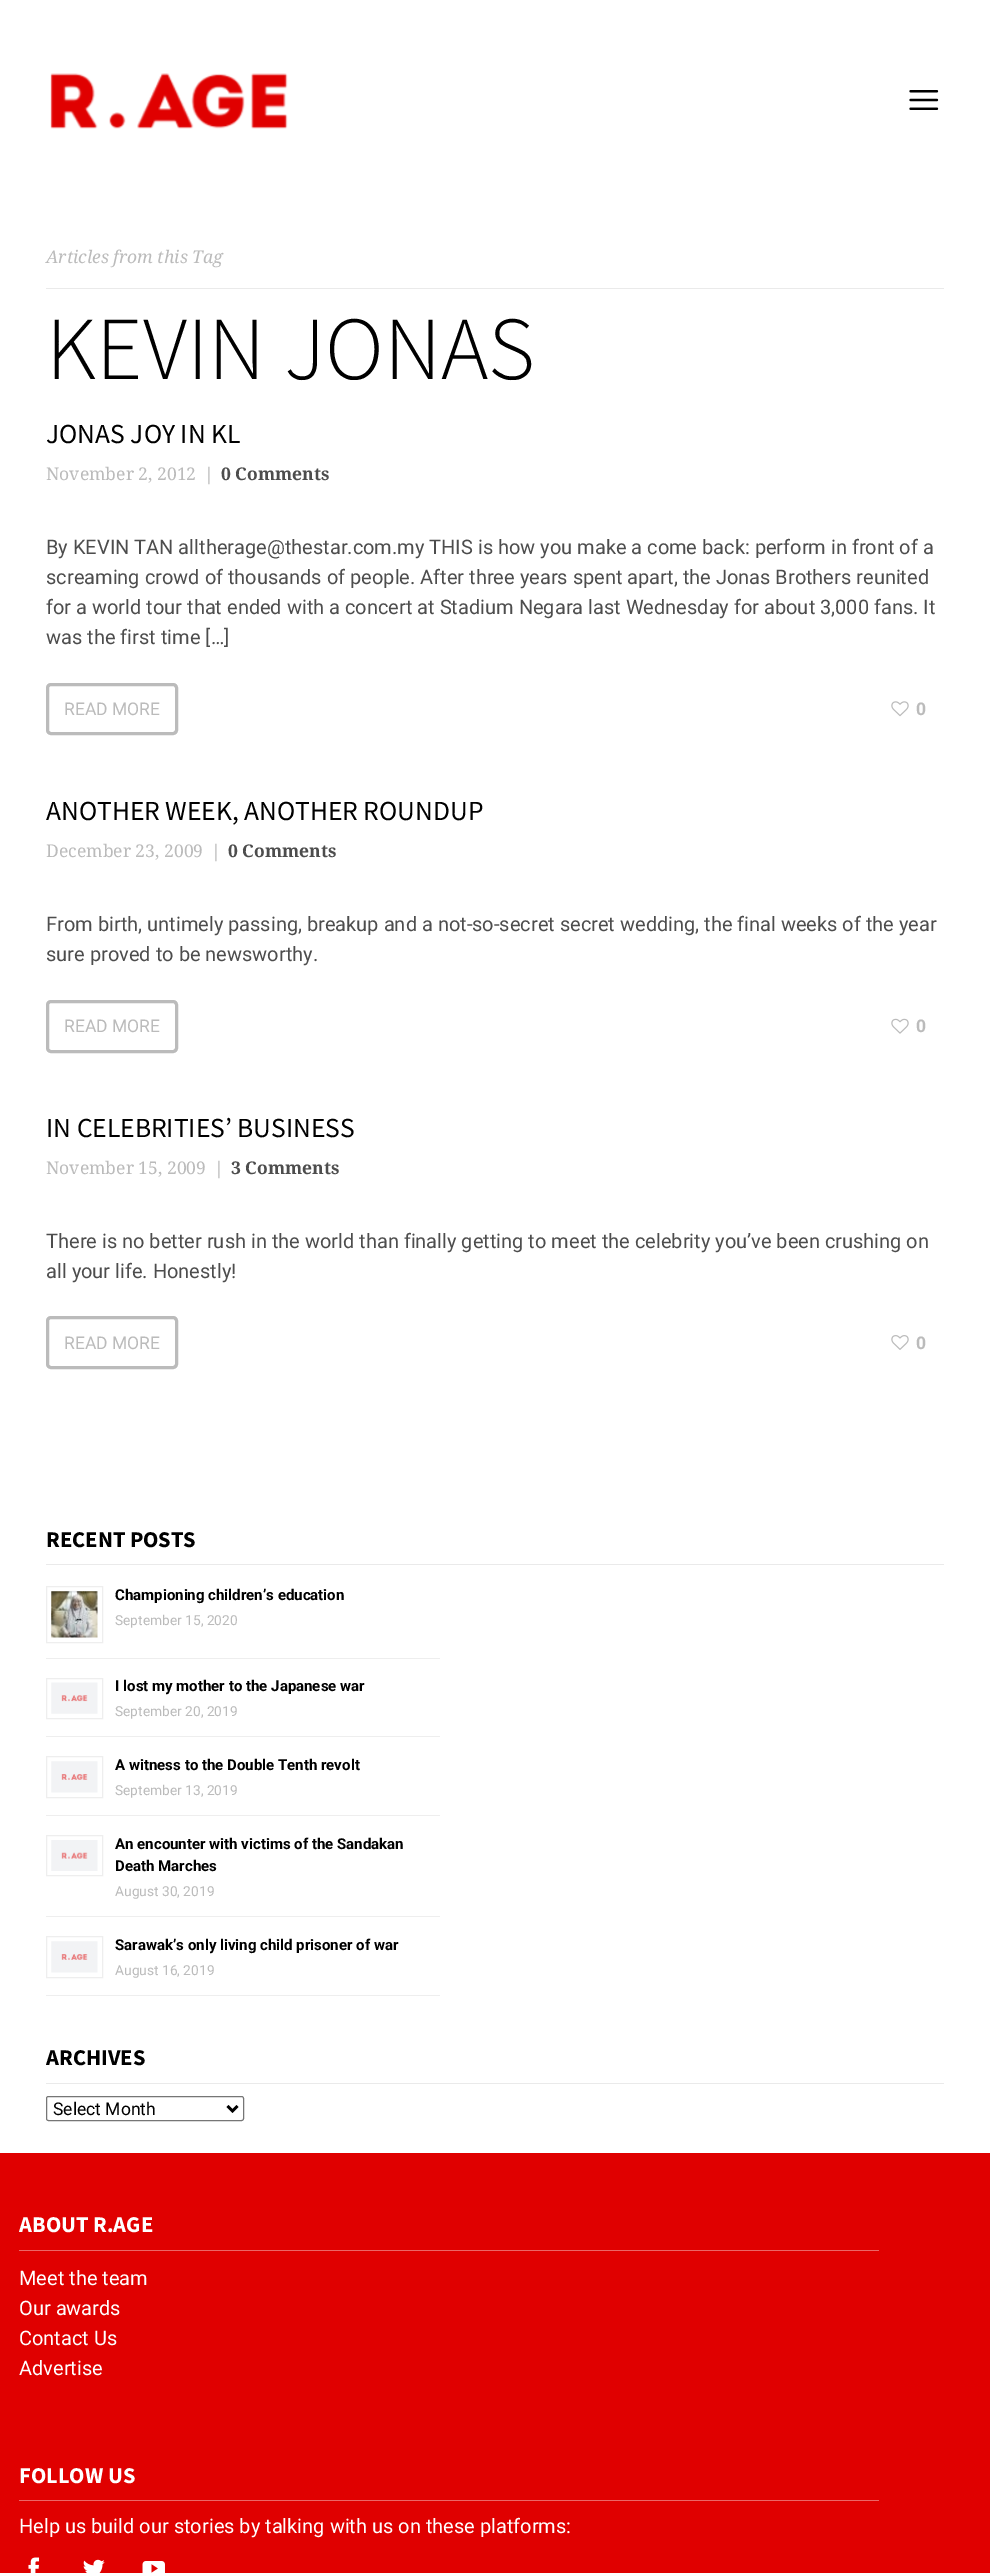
%!PS
<< /PageSize [990 2573] >> setpagedevice
/mt/moveto load def
/li/lineto load def
/st/stroke load def
/lw/setlinewidth load def
/co { dup -16 bitshift 255 div exch dup -8 bitshift 255 and 255 div exch 255 and 255 div setrgbcolor } def
/fn { [ exch dup neg 0 0 3 -1 roll 0 0 ] selectfont } def
/tx { co fn moveto show } def
/bx { co rectfill } def
/rr { 5 dict begin { /r /h /w /y /x } { exch def } forall
  x r add y moveto x w add y 2 copy h add r arct x w add y h add x 1 index r arct
  x y h add x y r arct x y 2 copy exch w add exch r arct closepath end } def
/im { 5 dict begin { /h /w /y /x /name } { exch def } forall
  gsave x y translate w h scale
  w h 8 [w 0 0 h 0 0] name (r) file false 3 colorimage grestore end } def
0 2573 translate 1 -1 scale
4 setmiterlimit
0 0 990 2573 16#FFFFFF bx
(media/1.raw) 50 73 238 56 im
(media/2.raw) 909 90 30 20 im
46 288 898 1 16#EAEAEA bx
16#BBBBBB co
3 lw
47.5 684.5 129 49 3.5 rr st
(media/3.raw) 891 701 18 16 im
47.5 1001.5 129 50 3.5 rr st
(media/4.raw) 891 1018 18 16 im
47.5 1317.5 129 50 3.5 rr st
(media/5.raw) 891 1335 18 15 im
46 1564 898 1 16#EAEAEA bx
46 1658 394 1 16#EEEEEE bx
1 lw
46.5 1586.5 56 56 rectstroke
(media/6.raw) 51 1591 47 47 im
46 1736 394 1 16#EEEEEE bx
46.5 1678.5 56 40 rectstroke
(media/7.raw) 51 1682 47 32 im
46 1815 394 1 16#EEEEEE bx
46.5 1756.5 56 41 rectstroke
(media/8.raw) 51 1761 47 32 im
46 1916 394 1 16#EEEEEE bx
46.5 1835.5 56 40 rectstroke
(media/9.raw) 51 1840 47 31 im
46 1995 394 1 16#EEEEEE bx
46.5 1936.5 56 41 rectstroke
(media/8.raw) 51 1941 47 32 im
46 2083 898 1 16#EAEAEA bx
16#767676 co
46.5 2096.5 197 24 2 rr st
16#000000 co
2.5 lw
227.5 2106 mt 232.5 2111 li 237.5 2106 li st
0 2153 990 420 16#E00000 bx
19 2250 860 1 16#EC6666 bx
19 2500 860 1 16#EC6666 bx
(media/10.raw) 28 2557 12 16 im
(media/11.raw) 83 2559 22 14 im
(media/12.raw) 142 2561 23 12 im
(Articles from this Tag) 46 263 /NotoSerif-Italic 17.5 16#BBBBBB tx
(KEVIN JONAS) 46 379 /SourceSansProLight-Light 90 16#000000 tx
(JONAS JOY IN KL) 46 443 /SourceSansPro-Regular 27.5 16#000000 tx
(November 2, 2012) 46 480 /NotoSerif-Regular 17.5 16#BBBBBB tx
(|) 204 480 /NotoSerif-Regular 17.5 16#BBBBBB tx
(0 Comments) 221 480 /NotoSerif-Bold 17.5 16#4D4D4D tx
(By KEVIN TAN alltherage@thestar.com.my THIS is how you make a come back: perform in front of a) 46 554 /Roboto-Regular 20 16#4D4D4D tx
(screaming crowd of thousands of people. After three years spent apart, the Jonas Brothers reunited) 46 584 /Roboto-Regular 20 16#4D4D4D tx
(for a world tour that ended with a concert at Stadium Negara last Wednesday for about 3,000 fans. It) 46 614 /Roboto-Regular 20 16#4D4D4D tx
(was the first time […]) 46 644 /Roboto-Regular 20 16#4D4D4D tx
(READ MORE) 64 715 /Roboto-Regular 17.5 16#BBBBBB tx
(0) 916 715 /Roboto-Bold 17.5 16#BBBBBB tx
(ANOTHER WEEK, ANOTHER ROUNDUP) 46 820 /SourceSansPro-Regular 27.5 16#000000 tx
(December 23, 2009) 46 857 /NotoSerif-Regular 17.5 16#BBBBBB tx
(|) 211 857 /NotoSerif-Regular 17.5 16#BBBBBB tx
(0 Comments) 228 857 /NotoSerif-Bold 17.5 16#4D4D4D tx
(From birth, untimely passing, breakup and a not-so-secret secret wedding, the final weeks of the year) 46 931 /Roboto-Regular 20 16#4D4D4D tx
(sure proved to be newsworthy.) 46 961 /Roboto-Regular 20 16#4D4D4D tx
(READ MORE) 64 1032 /Roboto-Regular 17.5 16#BBBBBB tx
(0) 916 1032 /Roboto-Bold 17.5 16#BBBBBB tx
(IN CELEBRITIES’ BUSINESS) 46 1137 /SourceSansPro-Regular 27.5 16#000000 tx
(November 15, 2009) 46 1174 /NotoSerif-Regular 17.5 16#BBBBBB tx
(|) 214 1174 /NotoSerif-Regular 17.5 16#BBBBBB tx
(3 Comments) 231 1174 /NotoSerif-Bold 17.5 16#4D4D4D tx
(There is no better rush in the world than finally getting to meet the celebrity you’ve been crushing on) 46 1248 /Roboto-Regular 20 16#4D4D4D tx
(all your life. Honestly!) 46 1278 /Roboto-Regular 20 16#4D4D4D tx
(READ MORE) 64 1349 /Roboto-Regular 17.5 16#BBBBBB tx
(0) 916 1349 /Roboto-Bold 17.5 16#BBBBBB tx
(RECENT POSTS) 46 1547 /SourceSansPro-Bold 22.5 16#000000 tx
(Championing children’s education) 115 1600 /Roboto-Bold 15 16#000000 tx
(September 15, 2020) 115 1625 /Roboto-Regular 13.75 16#BBBBBB tx
(I lost my mother to the Japanese war) 115 1691 /Roboto-Bold 15 16#000000 tx
(September 20, 2019) 115 1716 /Roboto-Regular 13.75 16#BBBBBB tx
(A witness to the Double Tenth revolt) 115 1770 /Roboto-Bold 15 16#000000 tx
(September 13, 2019) 115 1795 /Roboto-Regular 13.75 16#BBBBBB tx
(An encounter with victims of the Sandakan) 115 1849 /Roboto-Bold 15 16#000000 tx
(Death Marches) 115 1871 /Roboto-Bold 15 16#000000 tx
(August 30, 2019) 115 1896 /Roboto-Regular 13.75 16#BBBBBB tx
(Sarawak’s only living child prisoner of war) 115 1950 /Roboto-Bold 15 16#000000 tx
(August 16, 2019) 115 1975 /Roboto-Regular 13.75 16#BBBBBB tx
(ARCHIVES) 46 2065 /SourceSansPro-Bold 22.5 16#000000 tx
(Select Month) 53 2115 /Roboto-Regular 17.5 16#000000 tx
(ABOUT R.AGE) 19 2232 /SourceSansPro-Bold 22.5 16#FFFFFF tx
(Meet the team) 19 2285 /Roboto-Regular 20 16#FFFFFF tx
(Our awards) 19 2315 /Roboto-Regular 20 16#FFFFFF tx
(Contact Us) 19 2345 /Roboto-Regular 20 16#FFFFFF tx
(Advertise) 19 2375 /Roboto-Regular 20 16#FFFFFF tx
(FOLLOW US) 19 2483 /SourceSansPro-Bold 22.5 16#FFFFFF tx
(Help us build our stories by talking with us on these platforms:) 19 2533 /Roboto-Regular 20 16#FFFFFF tx
showpage
